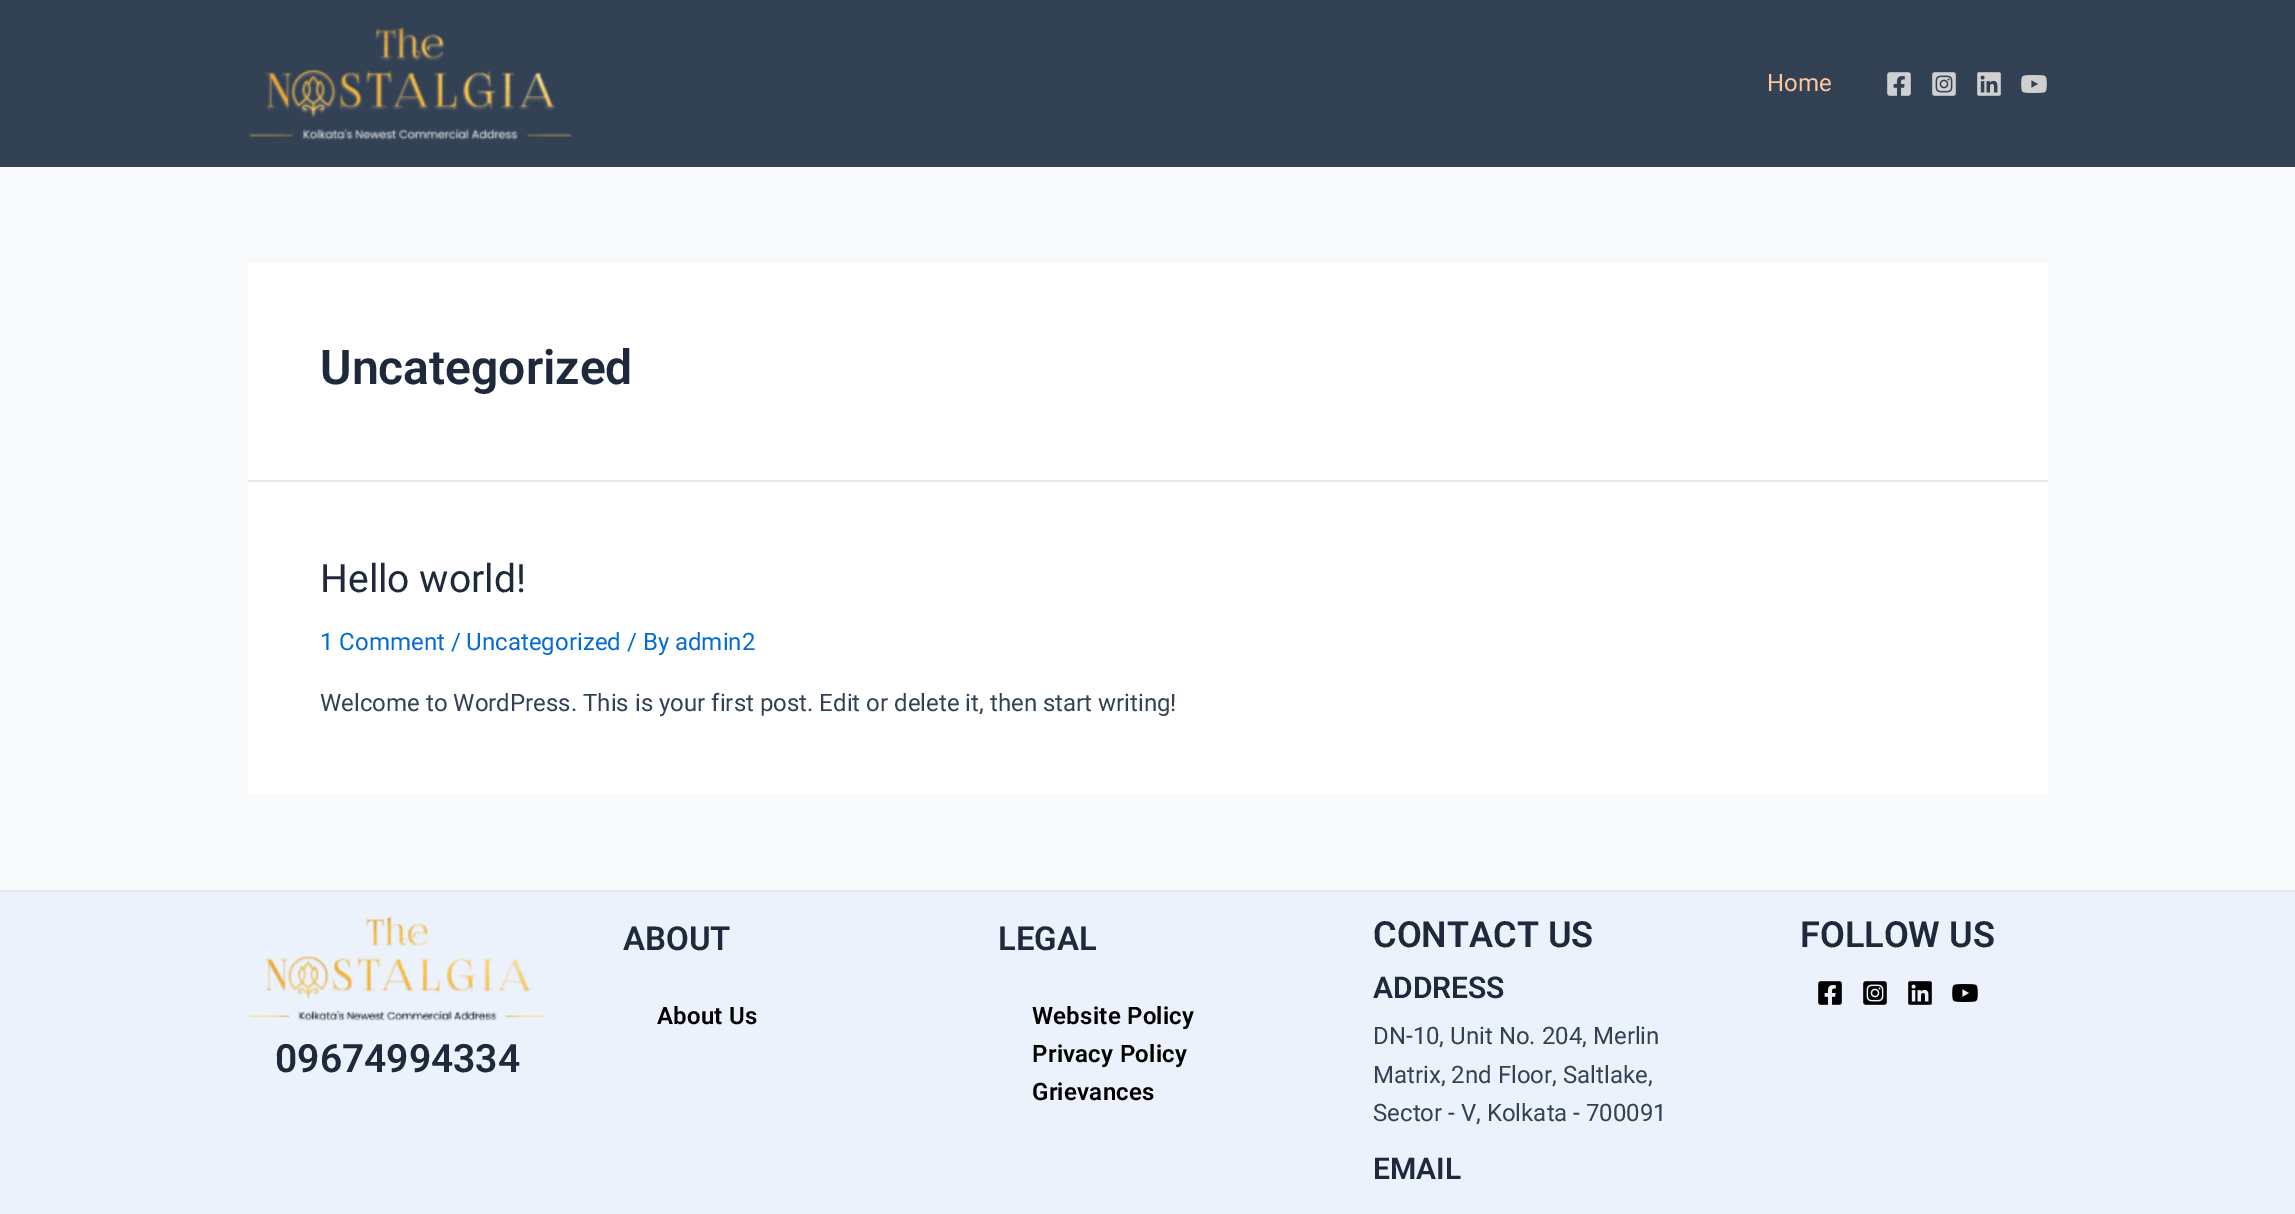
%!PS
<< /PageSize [2295 1214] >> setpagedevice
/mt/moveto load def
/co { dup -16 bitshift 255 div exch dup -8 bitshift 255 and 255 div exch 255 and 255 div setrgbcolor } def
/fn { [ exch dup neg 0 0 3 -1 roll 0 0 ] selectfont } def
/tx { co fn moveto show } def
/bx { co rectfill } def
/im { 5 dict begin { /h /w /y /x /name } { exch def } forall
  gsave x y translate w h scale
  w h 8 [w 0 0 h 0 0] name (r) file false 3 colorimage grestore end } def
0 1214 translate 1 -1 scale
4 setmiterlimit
0 0 2295 1214 16#F9FAFB bx
0 0 2295 167 16#334155 bx
(media/1.raw) 248 26 324 114 im
(media/2.raw) 1887 72 24 24 im
(media/3.raw) 1932 72 24 24 im
(media/4.raw) 1977 72 24 24 im
(media/5.raw) 2021 75 26 18 im
248 263 1800 217 16#FFFFFF bx
248 480 1800 2 16#E2E8F0 bx
248 482 1800 312 16#FFFFFF bx
0 892 2295 322 16#EBF2FC bx
0 890 2295 2 16#E6E6E6 bx
(media/6.raw) 248 916 299 105 im
(media/7.raw) 1818 981 24 24 im
(media/8.raw) 1863 981 24 24 im
(media/9.raw) 1908 981 24 24 im
(media/10.raw) 1952 984 26 18 im
(Home) 1767 91 /Roboto-Regular 24 16#FEC79C tx
(Uncategorized) 320 384 /Roboto-SemiBold 48 16#1E293B tx
(Hello world!) 320 592 /Roboto-Regular 39 16#1E293B tx
(1 Comment / Uncategorized / By admin2) 320 650 /Roboto-Regular 24 16#046BD2 tx
(Welcome to WordPress. This is your first post. Edit or delete it, then start writing!) 320 711 /Roboto-Regular 24 16#334155 tx
(09674994334) 275 1072 /Roboto-SemiBold 39 16#1E293B tx
(ABOUT) 623 950 /Roboto-SemiBold 33 16#1E293B tx
/Roboto-SemiBold 24 fn
16#000000 co
657 1024 mt .25 0 (About Us) ashow
(LEGAL) 998 950 /Roboto-SemiBold 33 16#1E293B tx
/Roboto-SemiBold 24 fn
16#000000 co
1032 1024 mt .25 0 (Website Policy) ashow
1032 1062 mt .25 0 (Privacy Policy) ashow
1032 1100 mt .25 0 (Grievances) ashow
(CONTACT US) 1373 947 /Roboto-SemiBold 36 16#1E293B tx
(ADDRESS) 1373 998 /Roboto-SemiBold 30 16#1E293B tx
(DN-10, Unit No. 204, Merlin) 1373 1044 /Roboto-Regular 24 16#334155 tx
(Matrix, 2nd Floor, Saltlake,) 1373 1083 /Roboto-Regular 24 16#334155 tx
(Sector - V, Kolkata - 700091) 1373 1121 /Roboto-Regular 24 16#334155 tx
(EMAIL) 1373 1179 /Roboto-SemiBold 30 16#1E293B tx
(FOLLOW US) 1800 947 /Roboto-SemiBold 36 16#1E293B tx
showpage
